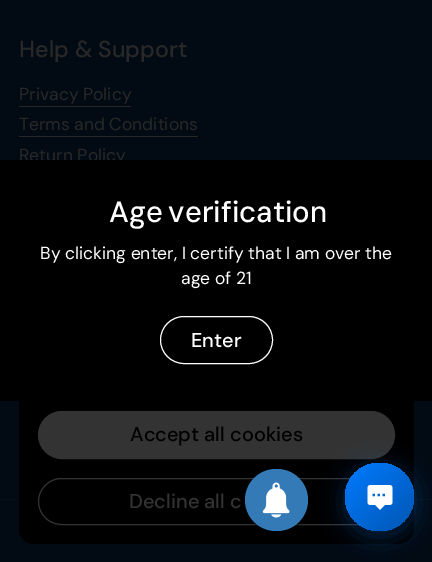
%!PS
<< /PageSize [432 562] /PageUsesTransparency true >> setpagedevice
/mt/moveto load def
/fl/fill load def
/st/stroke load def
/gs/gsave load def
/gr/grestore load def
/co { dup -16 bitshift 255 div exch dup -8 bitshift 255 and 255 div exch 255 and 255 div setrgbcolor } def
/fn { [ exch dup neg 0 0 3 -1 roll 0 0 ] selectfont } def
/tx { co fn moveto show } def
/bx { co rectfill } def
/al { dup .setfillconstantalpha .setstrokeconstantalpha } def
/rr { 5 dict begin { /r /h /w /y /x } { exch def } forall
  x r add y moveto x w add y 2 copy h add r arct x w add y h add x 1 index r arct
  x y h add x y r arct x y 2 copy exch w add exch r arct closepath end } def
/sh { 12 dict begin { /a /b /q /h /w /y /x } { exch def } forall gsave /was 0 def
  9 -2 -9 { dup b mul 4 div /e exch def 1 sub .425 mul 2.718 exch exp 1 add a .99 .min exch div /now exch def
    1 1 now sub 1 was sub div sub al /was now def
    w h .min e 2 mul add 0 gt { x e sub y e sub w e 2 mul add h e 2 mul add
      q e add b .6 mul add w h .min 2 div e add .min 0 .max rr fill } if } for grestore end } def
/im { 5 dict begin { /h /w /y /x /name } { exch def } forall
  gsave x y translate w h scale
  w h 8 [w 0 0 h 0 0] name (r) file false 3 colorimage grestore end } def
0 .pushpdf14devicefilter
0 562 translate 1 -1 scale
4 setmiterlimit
0 0 432 562 16#020A13 bx
19 106 112 1 16#282828 bx
19 136 179 1 16#282828 bx
0 499 432 1 16#080E16 bx
16#000000 co
19 268 395 276 15 rr fl
16#333333 co
38.5 411.5 356 47 23.5 rr gs fl gr
st
38.5 478.5 356 46 23 rr st
16#007BFF co
345 468 69 68 34 12.5 .3 sh
gs 345 463 69 68 34 rr clip newpath
<< /ShadingType 2 /ColorSpace /DeviceRGB /Coords [345 463 414 531] /Extend [true true] /Function << /FunctionType 2 /Domain [0 1] /C0 [0 .482 1] /C1 [0 .337 .702] /N 1 >> >> shfill gr
(media/1.raw) 367 485 26 25 im
16#000000 co
246 470 63 63 31.5 .5 .5 sh
16#337AB7 co
245 469 63 62 31 rr fl
(media/2.raw) 262 482 28 36 im
(Help & Support) 19 57 /DMSans-Medium 23.25 16#282828 tx
(Privacy Policy) 19 100 /DMSans-Regular 17.5 16#282828 tx
(Terms and Conditions) 19 130 /DMSans-Regular 17.5 16#282828 tx
(Return Policy) 19 161 /DMSans-Regular 17.5 16#282828 tx
0 160 432 241 16#000000 bx
/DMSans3-Medium 29.25 fn
16#FFFFFF co
109 222 mt -2 0 32 (Age verification) widthshow
(By clicking enter, I certify that I am over the) 40 259 /DMSans-Regular 17.5 16#FFFFFF tx
(age of 21) 181 284 /DMSans-Regular 17.5 16#FFFFFF tx
160.5 316.5 112 47 23.5 rr st
(Enter) 191 347 /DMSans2-Medium 20 16#FFFFFF tx
(Accept all cookies) 130 441 /DMSans2-Medium 20 16#000000 tx
(Decline all c) 129 508 /DMSans2-Medium 20 16#333333 tx
.poppdf14devicefilter showpage
